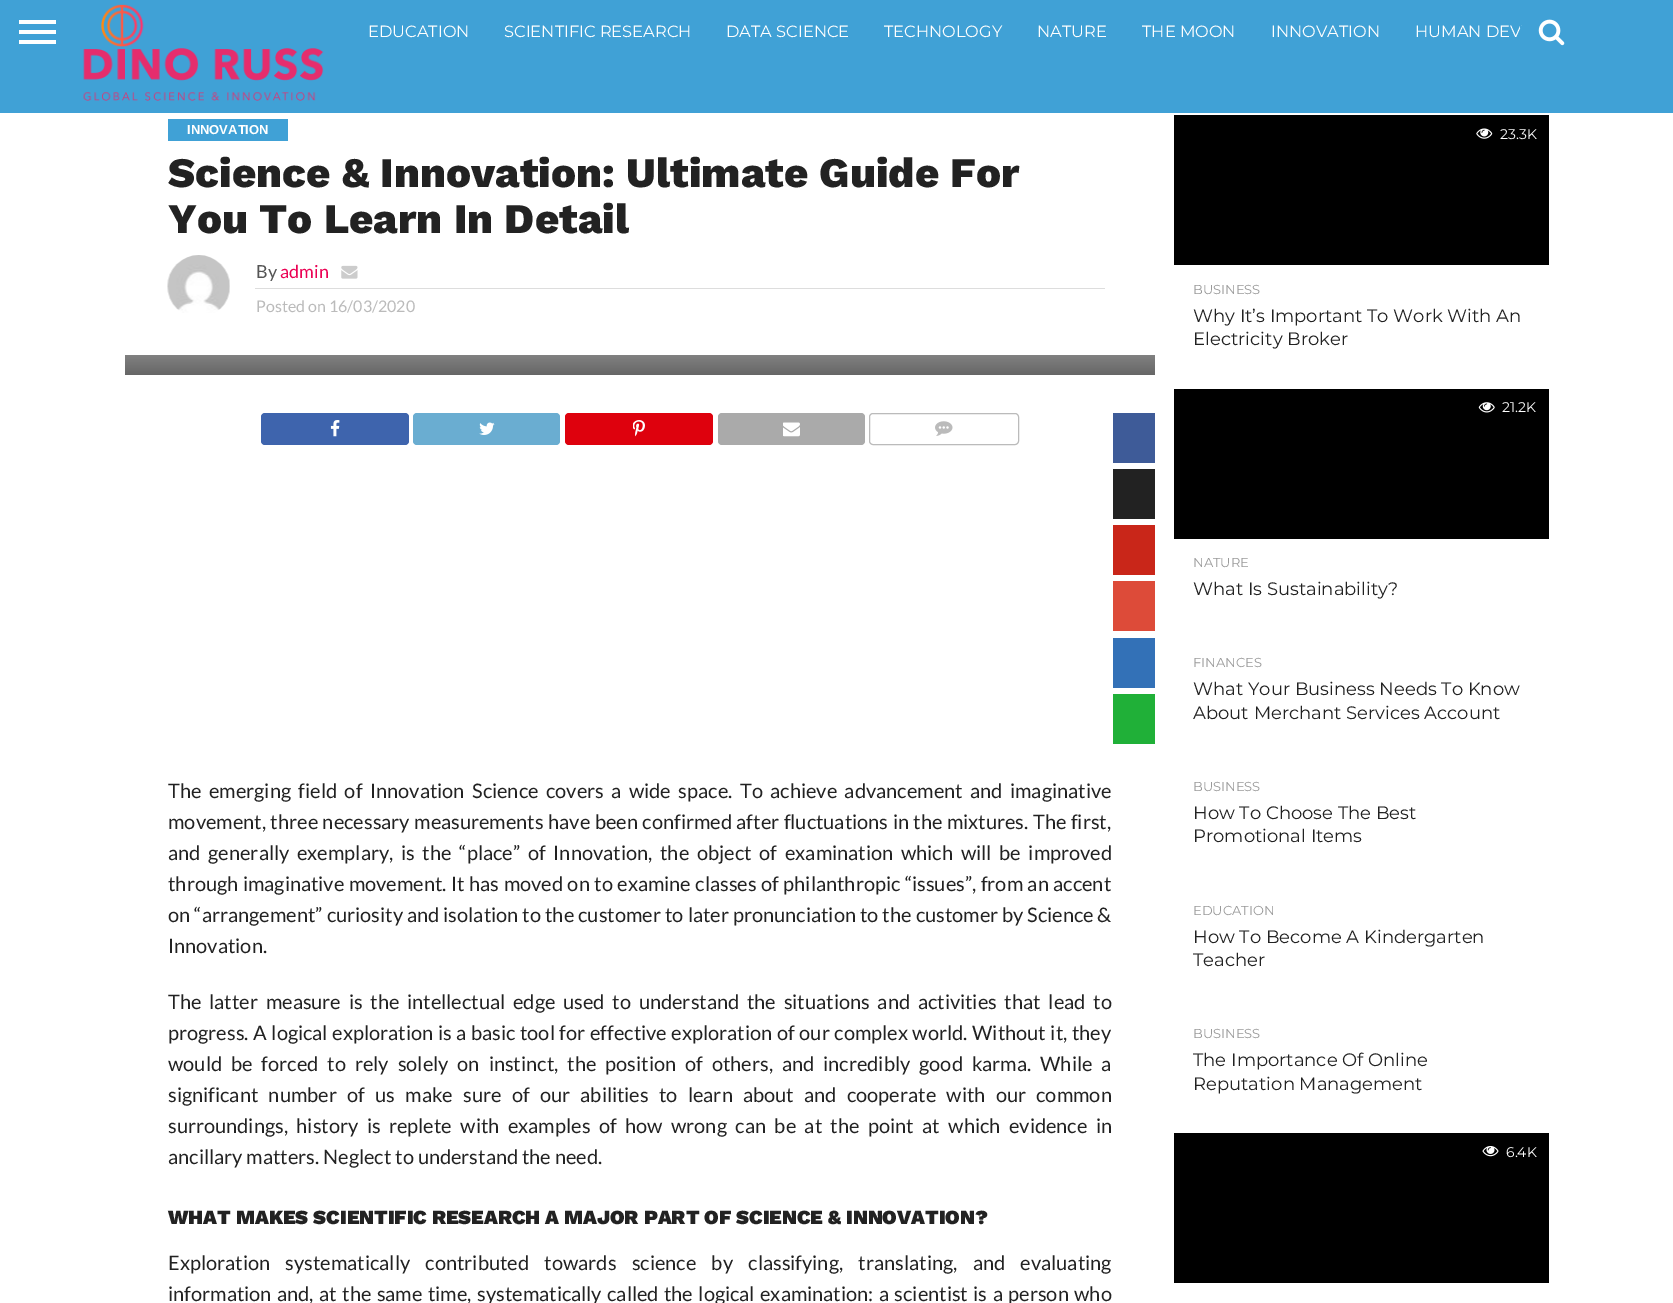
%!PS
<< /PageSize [1673 1303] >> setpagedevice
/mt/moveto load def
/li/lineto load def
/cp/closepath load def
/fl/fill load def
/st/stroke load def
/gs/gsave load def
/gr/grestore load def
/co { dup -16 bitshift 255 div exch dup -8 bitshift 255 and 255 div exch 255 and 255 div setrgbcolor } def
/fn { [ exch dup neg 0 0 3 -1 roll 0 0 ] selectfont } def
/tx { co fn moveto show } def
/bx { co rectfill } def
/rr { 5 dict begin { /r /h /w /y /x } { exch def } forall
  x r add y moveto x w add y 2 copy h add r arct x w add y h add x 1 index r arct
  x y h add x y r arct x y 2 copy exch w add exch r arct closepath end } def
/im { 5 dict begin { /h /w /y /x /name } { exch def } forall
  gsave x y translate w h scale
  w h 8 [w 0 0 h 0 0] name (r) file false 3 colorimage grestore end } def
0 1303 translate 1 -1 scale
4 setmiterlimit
0 0 1673 1303 16#FFFFFF bx
0 0 1673 113 16#40A1D6 bx
19 20 37 4 16#FFFFFF bx
19 30 37 4 16#FFFFFF bx
19 40 37 4 16#FFFFFF bx
(media/1.raw) 83 4 241 97 im
(media/2.raw) 1538 19 27 27 im
168 119 120 22 16#40A1D6 bx
(media/3.raw) 167 255 63 58 im
255 288 850 1 16#DDDDDD bx
(media/4.raw) 341 265 17 14 im
gs 125 355 mt 1155 355 li 1155 375 li 125 375 li cp clip newpath
<< /ShadingType 2 /ColorSpace /DeviceRGB /Coords [640 300 640 375] /Extend [true true] /Function << /FunctionType 3 /Domain [0 1] /Functions [<< /FunctionType 2 /Domain [0 1] /C0 [1 1 1] /C1 [.6 .6 .6] /N 1 >> << /FunctionType 2 /Domain [0 1] /C0 [.6 .6 .6] /C1 [.4 .4 .4] /N 1 >>] /Bounds [.5] /Encode [0 1 0 1] >> >> shfill gr
16#3E64AD co
261 413 148 32 4 rr fl
(media/5.raw) 330 420 10 17 im
16#6AADD1 co
413 413 147 32 4 rr fl
(media/6.raw) 479 422 16 13 im
16#DE010D co
565 413 148 32 4 rr fl
(media/7.raw) 633 420 12 17 im
16#AAAAAA co
718 413 147 32 4 rr fl
(media/8.raw) 783 422 17 15 im
16#BBBBBB co
869.5 413.5 149 31 3.5 rr st
(media/9.raw) 935 421 18 15 im
1113 413 42 50 16#3E5B98 bx
1113 469 42 50 16#222222 bx
1113 525 42 50 16#C92619 bx
1113 581 42 50 16#DD4B39 bx
1113 638 42 50 16#3371B7 bx
1113 694 42 50 16#20B038 bx
1174 115 375 150 16#000000 bx
(media/10.raw) 1476 128 17 11 im
1174 389 375 150 16#000000 bx
(media/11.raw) 1478 402 17 11 im
1174 1133 375 150 16#000000 bx
(media/12.raw) 1482 1146 17 11 im
(EDUCATION) 368 37 /Montserrat-Regular 16.25 16#FFFFFF tx
(SCIENTIFIC RESEARCH) 504 37 /Montserrat-Regular 16.25 16#FFFFFF tx
(DATA SCIENCE) 726 37 /Montserrat-Regular 16.25 16#FFFFFF tx
(TECHNOLOGY) 884 37 /Montserrat-Regular 16.25 16#FFFFFF tx
(NATURE) 1037 37 /Montserrat-Regular 16.25 16#FFFFFF tx
(THE MOON) 1142 37 /Montserrat-Regular 16.25 16#FFFFFF tx
(INNOVATION) 1271 37 /Montserrat-Regular 16.25 16#FFFFFF tx
(HUMAN DEV) 1415 37 /Montserrat-Regular 16.25 16#FFFFFF tx
1520 25 1 3 16#40A1D6 bx
(INNOVATION) 187 134 /LiberationSans-Bold 13 16#FFFFFF tx
(Science & Innovation: Ultimate Guide For) 168 187 /WorkSans-ExtraBold 42 16#222222 tx
(You To Learn In Detail) 168 233 /WorkSans-ExtraBold 42 16#222222 tx
(By) 256 278 /Lato-Regular 18 16#555555 tx
(admin) 280 278 /Lato-Regular 18 16#EB0254 tx
(Posted on 16/03/2020) 256 312 /Lato-Regular 16 16#BBBBBB tx
/Lato-Regular 20 fn
16#222222 co
168 798 mt 3.6 0 32 (The emerging field of Innovation Science covers a wide space. To achieve advancement and imaginative) widthshow
168 829 mt .6 0 32 (movement, three necessary measurements have been confirmed after fluctuations in the mixtures. The first,) widthshow
168 860 mt 3.9 0 32 (and generally exemplary, is the “place” of Innovation, the object of examination which will be improved) widthshow
168 891 mt .6 0 32 (through imaginative movement. It has moved on to examine classes of philanthropic “issues”, from an accent) widthshow
168 922 mt .2 0 32 (on “arrangement” curiosity and isolation to the customer to later pronunciation to the customer by) widthshow
(Science &) 1027 922 /Lato-Regular 20 16#222222 tx
(Innovation.) 168 953 /Lato-Regular 20 16#222222 tx
168 1009 mt 3.9 0 32 (The latter measure is the intellectual edge used to understand the situations and activities that lead to) widthshow
168 1040 mt .75 0 32 (progress. A logical exploration is a basic tool for effective exploration of our complex world. Without it, they) widthshow
168 1071 mt 5.1 0 32 (would be forced to rely solely on instinct, the position of others, and incredibly good karma. While a) widthshow
168 1102 mt 6.4 0 32 (significant number of us make sure of our abilities to learn about and cooperate with our common) widthshow
168 1133 mt 4.6 0 32 (surroundings, history is replete with examples of how wrong can be at the point at which evidence in) widthshow
(ancillary matters. Neglect to understand the need.) 168 1164 /Lato-Regular 20 16#222222 tx
(WHAT MAKES SCIENTIFIC RESEARCH A MAJOR PART OF SCIENCE & INNOVATION?) 168 1224 /WorkSans-Black 20 16#222222 tx
/Lato-Regular 20 fn
168 1270 mt 11.5 0 32 (Exploration systematically contributed towards science by classifying, translating, and evaluating) widthshow
168 1301 mt 1.6 0 32 (information and, at the same time, systematically called the logical examination: a scientist is a person who) widthshow
(23.3K) 1500 139 /Montserrat-Regular 14 16#FFFFFF tx
(BUSINESS) 1193 294 /Montserrat-Regular 13 16#999999 tx
(Why It’s Important To Work With An) 1193 322 /Montserrat-Regular 18 16#222222 tx
(Electricity Broker) 1193 345 /Montserrat-Regular 18 16#222222 tx
(21.2K) 1502 412 /Montserrat-Regular 14 16#FFFFFF tx
(NATURE) 1193 567 /Montserrat-Regular 13 16#999999 tx
(What Is Sustainability?) 1193 595 /Montserrat-Regular 18 16#222222 tx
(FINANCES) 1193 667 /Montserrat-Regular 13 16#999999 tx
(What Your Business Needs To Know) 1193 695 /Montserrat-Regular 18 16#222222 tx
(About Merchant Services Account) 1193 719 /Montserrat-Regular 18 16#222222 tx
(BUSINESS) 1193 791 /Montserrat-Regular 13 16#999999 tx
(How To Choose The Best) 1193 819 /Montserrat-Regular 18 16#222222 tx
(Promotional Items) 1193 842 /Montserrat-Regular 18 16#222222 tx
(EDUCATION) 1193 915 /Montserrat-Regular 13 16#999999 tx
(How To Become A Kindergarten) 1193 943 /Montserrat-Regular 18 16#222222 tx
(Teacher) 1193 966 /Montserrat-Regular 18 16#222222 tx
(BUSINESS) 1193 1038 /Montserrat-Regular 13 16#999999 tx
(The Importance Of Online) 1193 1066 /Montserrat-Regular 18 16#222222 tx
(Reputation Management) 1193 1090 /Montserrat-Regular 18 16#222222 tx
(6.4K) 1506 1157 /Montserrat-Regular 14 16#FFFFFF tx
showpage
